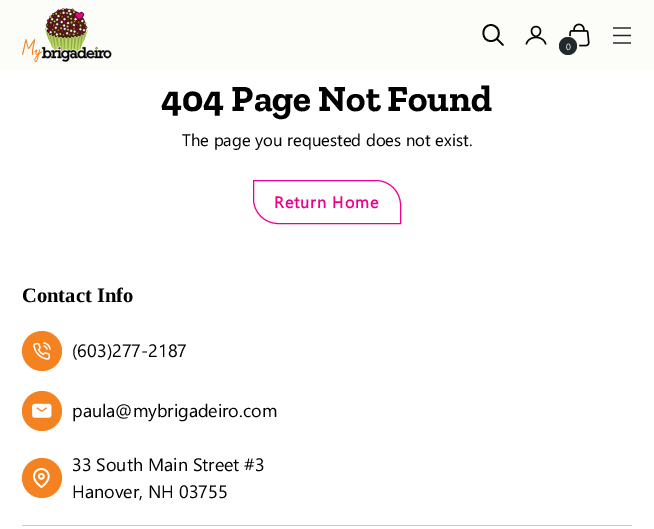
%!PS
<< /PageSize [654 529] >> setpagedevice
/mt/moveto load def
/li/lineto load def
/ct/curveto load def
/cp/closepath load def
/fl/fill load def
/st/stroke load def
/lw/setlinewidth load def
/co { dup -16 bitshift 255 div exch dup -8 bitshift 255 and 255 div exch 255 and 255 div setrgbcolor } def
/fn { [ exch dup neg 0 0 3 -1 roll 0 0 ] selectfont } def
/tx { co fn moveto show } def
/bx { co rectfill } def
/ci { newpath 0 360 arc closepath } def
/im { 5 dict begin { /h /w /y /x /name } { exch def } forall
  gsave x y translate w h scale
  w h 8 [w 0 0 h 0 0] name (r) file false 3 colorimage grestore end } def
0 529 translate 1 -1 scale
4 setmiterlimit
0 0 654 529 16#FFFFFF bx
0 0 654 70 16#FCFCF9 bx
(media/1.raw) 22 8 90 54 im
16#000000 co
1.7 lw
491 25 mt 480.5 25 481 41.5 491 41 ct 501.5 41 501.5 25.5 491 25 ct cp st
1 setlinecap
497 39 mt 503 45 li st
(media/2.raw) 525 25 22 20 im
16#22292D co
1.3 lw
0 setlinecap
613 35.5 mt 631 35.5 li 613 28 mt 631 28 li 613 43 mt 631 43 li st
(media/3.raw) 569 23 21 24 im
16#FCFCF9 co
2 lw
568.5 46.5 9.5 ci st
16#22292D co
568 46 9 ci fl
16#EC008C co
1 lw
253.5 180.5 mt 376 180.5 li 389.5 180.5 400.5 191.5 400.5 205 ct 400.5 223.5 li 278 223.5 li 264.5 223.5 253.5 212.5 253.5 199 ct cp st
22 525 610 1 16#CCCCCC bx
16#F58220 co
42 351 20 ci fl
(media/4.raw) 33 342 18 18 im
42 411 20 ci fl
(media/5.raw) 32 403 20 15 im
42 478 20 ci fl
(media/6.raw) 33 468 17 20 im
(0) 566 50 /SegoeUI-Regular 9 16#FCFCF9 tx
(404 Page Not Found) 161 111 /ZillaSlab-Bold 37 16#000000 tx
(The page you requested does not exist.) 182 146 /SegoeUI-Regular 16.75 16#000000 tx
/SegoeUI-Bold 16 fn
16#EC008C co
274 208 mt 1 0 (Return Home) ashow
(Contact Info) 22 302 /LiberationSerif-Bold 20.5 16#000000 tx
(\(603\)277-2187) 72 357 /SegoeUI-Regular 18 16#000000 tx
(paula@mybrigadeiro.com) 72 417 /SegoeUI-Regular 18 16#000000 tx
(33 South Main Street #3) 72 471 /SegoeUI-Regular 18 16#000000 tx
(Hanover, NH 03755) 72 498 /SegoeUI-Regular 18 16#000000 tx
showpage
